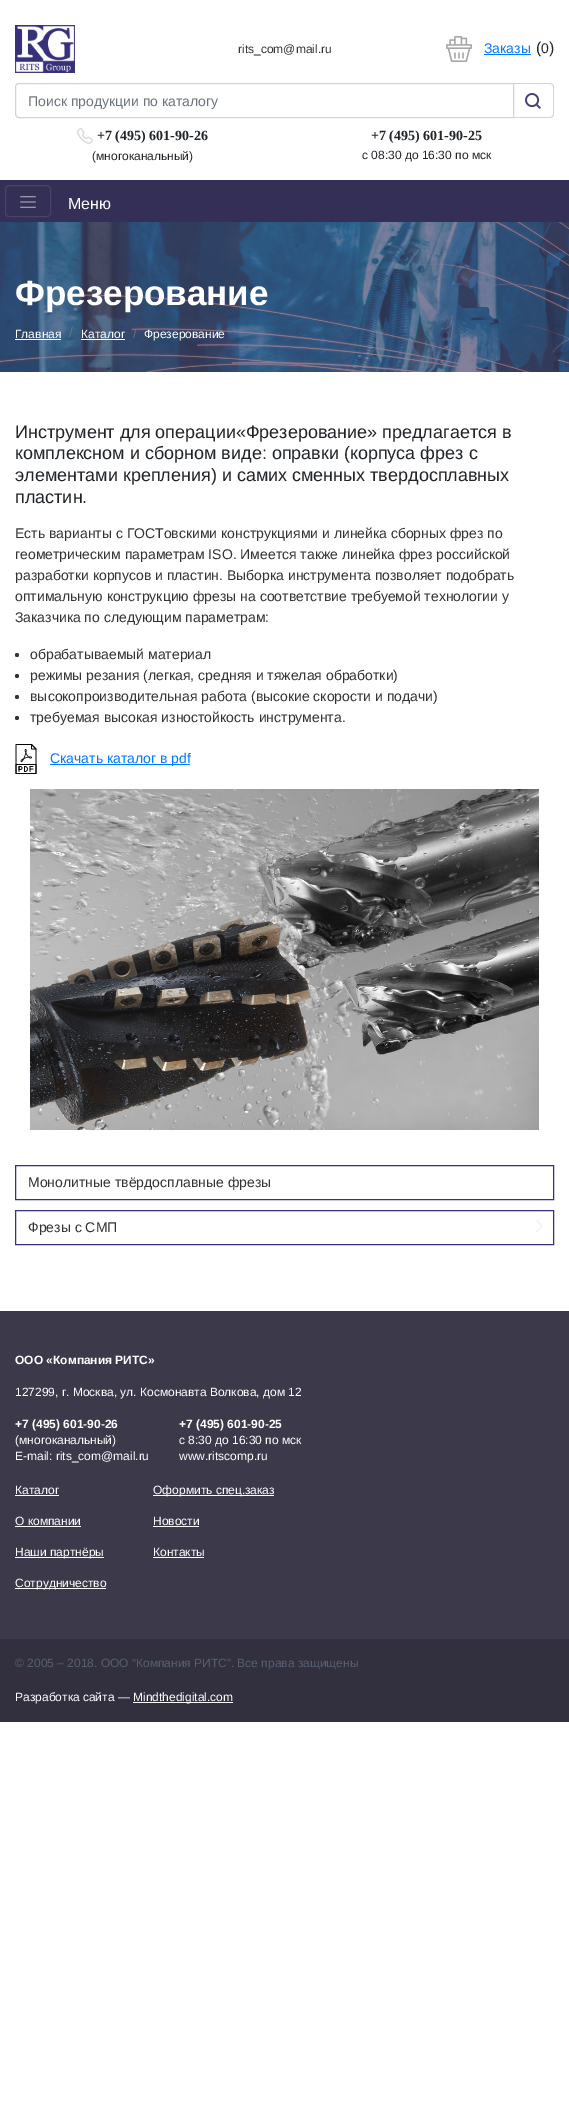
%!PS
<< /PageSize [569 2111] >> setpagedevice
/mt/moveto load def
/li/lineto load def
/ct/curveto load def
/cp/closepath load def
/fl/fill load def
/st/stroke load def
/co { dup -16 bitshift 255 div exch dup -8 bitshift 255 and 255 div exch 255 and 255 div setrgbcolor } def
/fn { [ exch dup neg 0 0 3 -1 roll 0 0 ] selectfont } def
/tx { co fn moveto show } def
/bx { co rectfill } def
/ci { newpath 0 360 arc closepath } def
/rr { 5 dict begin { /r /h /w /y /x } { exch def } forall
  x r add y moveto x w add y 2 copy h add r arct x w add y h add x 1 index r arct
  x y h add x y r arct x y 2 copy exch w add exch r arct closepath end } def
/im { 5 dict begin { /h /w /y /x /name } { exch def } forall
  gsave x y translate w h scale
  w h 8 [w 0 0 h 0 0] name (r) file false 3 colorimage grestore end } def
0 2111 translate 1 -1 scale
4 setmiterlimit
0 0 569 2111 16#FFFFFF bx
(media/1.raw) 15 25 60 48 im
(media/2.raw) 446 36 26 26 im
484 54 47 1 16#007BFF bx
16#CED4DA co
513 83 mt 550 83 li 552 83 554 85 554 87 ct 554 114 li 554 116 552 118 550 118 ct 513 118 li cp 513 84 mt 550 84 li 552 84 553 85 553 87 ct 553 114 li 553 116 552 117 550 117 ct 513 117 li cp eofill
19 83.5 mt 513.5 83.5 li 513.5 117.5 li 19 117.5 li 17 117.5 15.5 116 15.5 114 ct 15.5 87 li 15.5 85 17 83.5 19 83.5 ct cp st
(media/3.raw) 525 93 16 16 im
(media/4.raw) 77 128 16 16 im
0 180 569 42 16#332F57 bx
16#474468 co
5.5 185.5 45 31 3.5 rr st
(media/5.raw) 20 196 16 12 im
(media/6.raw) 0 222 569 150 im
15 339 46 1 16#FFFFFF bx
81 339 44 1 16#FFFFFF bx
16#333333 co
17 655 2 ci fl
17 676 2 ci fl
17 697 2 ci fl
17 718 2 ci fl
(media/7.raw) 15 744 22 30 im
50 764 140 1 16#007BFF bx
(media/8.raw) 30 789 509 341 im
16#37307A co
15.5 1165.5 538 34 rectstroke
15.5 1210.5 538 34 rectstroke
(media/9.raw) 536 1220 7 12 im
0 1311 569 328 16#3C3A4A bx
15 1495 44 1 16#FFFFFF bx
153 1495 121 1 16#FFFFFF bx
15 1526 66 1 16#FFFFFF bx
153 1526 46 1 16#FFFFFF bx
15 1557 89 1 16#FFFFFF bx
153 1557 51 1 16#FFFFFF bx
15 1588 91 1 16#FFFFFF bx
0 1639 569 83 16#32303E bx
133 1702 100 1 16#FFFFFF bx
(rits_com@mail.ru) 238 53 /LiberationSans-Regular 12 16#333333 tx
(Заказы) 484 53 /LiberationSans-Regular 14 16#007BFF tx
(\() 536 53 /LiberationSans-Regular 16 16#212529 tx
(0) 541 53 /LiberationSans-Regular 14 16#212529 tx
(\)) 549 53 /LiberationSans-Regular 16 16#212529 tx
(Поиск продукции по каталогу) 28 106 /LiberationSans-Regular 14 16#6C757D tx
(+7 \(495\) 601-90-26) 97 140 /LiberationSerif-Bold 14 16#212529 tx
(\(многоканальный\)) 92 160 /LiberationSans-Regular 12 16#212529 tx
(+7 \(495\) 601-90-25) 371 140 /LiberationSerif-Bold 14 16#212529 tx
(c 08:30 до 16:30 по мск) 362 159 /LiberationSans-Regular 12 16#212529 tx
(Меню) 68 209 /LiberationSans-Regular 16 16#FFFFFF tx
(Фрезерование) 15 305 /LiberationSans-Bold 35 16#FFFFFF tx
(Главная) 15 338 /LiberationSans-Regular 12 16#FFFFFF tx
(/) 69 337 /LiberationSans-Regular 14 16#6C757D tx
(Каталог) 81 338 /LiberationSans-Regular 12 16#FFFFFF tx
(/) 133 338 /LiberationSans-Regular 12 16#6C757D tx
(Фрезерование) 144 338 /LiberationSans-Regular 12 16#FFFFFF tx
(Инструмент для операции«Фрезерование» предлагается в) 15 438 /LiberationSans-Regular 18 16#212529 tx
(комплексном и сборном виде: оправки \(корпуса фрез с) 15 459 /LiberationSans-Regular 18 16#212529 tx
(элементами крепления\) и самих сменных твердосплавных) 15 481 /LiberationSans-Regular 18 16#212529 tx
(пластин.) 15 503 /LiberationSans-Regular 18 16#212529 tx
(Есть варианты с ГОСТовскими конструкциями и линейка сборных фрез по) 15 538 /LiberationSans-Regular 14 16#333333 tx
(геометрическим параметрам ISO. Имеется также линейка фрез российской) 15 559 /LiberationSans-Regular 14 16#333333 tx
(разработки корпусов и пластин. Выборка инструмента позволяет подобрать) 15 580 /LiberationSans-Regular 14 16#333333 tx
(оптимальную конструкцию фрезы на соответствие требуемой технологии у) 15 601 /LiberationSans-Regular 14 16#333333 tx
(Заказчика по следующим параметрам:) 15 622 /LiberationSans-Regular 14 16#333333 tx
(обрабатываемый материал) 30 659 /LiberationSans-Regular 14 16#333333 tx
(режимы резания \(легкая, средняя и тяжелая обработки\)) 30 680 /LiberationSans-Regular 14 16#333333 tx
(высокопроизводительная работа \(высокие скорости и подачи\)) 30 701 /LiberationSans-Regular 14 16#333333 tx
(требуемая высокая изностойкость инструмента.) 30 722 /LiberationSans-Regular 14 16#333333 tx
(Скачать каталог в pdf) 50 763 /LiberationSans-Regular 14 16#007BFF tx
(Монолитные твёрдосплавные фрезы) 28 1187 /LiberationSans-Regular 14 16#333333 tx
(Фрезы с СМП) 28 1232 /LiberationSans-Regular 14 16#333333 tx
(ООО «Компания РИТС») 15 1364 /LiberationSans-Bold 12 16#FFFFFF tx
(127299, г. Москва, ул. Космонавта Волкова, дом 12) 15 1396 /LiberationSans-Regular 12 16#FFFFFF tx
(+7 \(495\) 601-90-26) 15 1428 /LiberationSans-Bold 12 16#FFFFFF tx
(\(многоканальный\)) 15 1444 /LiberationSans-Regular 12 16#FFFFFF tx
(E-mail: rits_com@mail.ru) 15 1460 /LiberationSans-Regular 12 16#FFFFFF tx
(+7 \(495\) 601-90-25) 179 1428 /LiberationSans-Bold 12 16#FFFFFF tx
(с 8:30 до 16:30 по мск) 179 1444 /LiberationSans-Regular 12 16#FFFFFF tx
(www.ritscomp.ru) 179 1460 /LiberationSans-Regular 12 16#FFFFFF tx
(Каталог) 15 1494 /LiberationSans-Regular 12 16#FFFFFF tx
(Оформить спец.заказ) 153 1494 /LiberationSans-Regular 12 16#FFFFFF tx
(О компании) 15 1525 /LiberationSans-Regular 12 16#FFFFFF tx
(Новости) 153 1525 /LiberationSans-Regular 12 16#FFFFFF tx
(Наши партнёры) 15 1556 /LiberationSans-Regular 12 16#FFFFFF tx
(Контакты) 153 1556 /LiberationSans-Regular 12 16#FFFFFF tx
(Сотрудничество) 15 1587 /LiberationSans-Regular 12 16#FFFFFF tx
(© 2005 – 2018. ООО “Компания РИТС”. Все права защищены) 15 1667 /LiberationSans-Regular 12 16#566072 tx
(Разработка сайта —) 15 1701 /LiberationSans-Regular 12 16#FFFFFF tx
(Mindthedigital.com) 133 1701 /LiberationSans-Regular 12 16#FFFFFF tx
showpage
